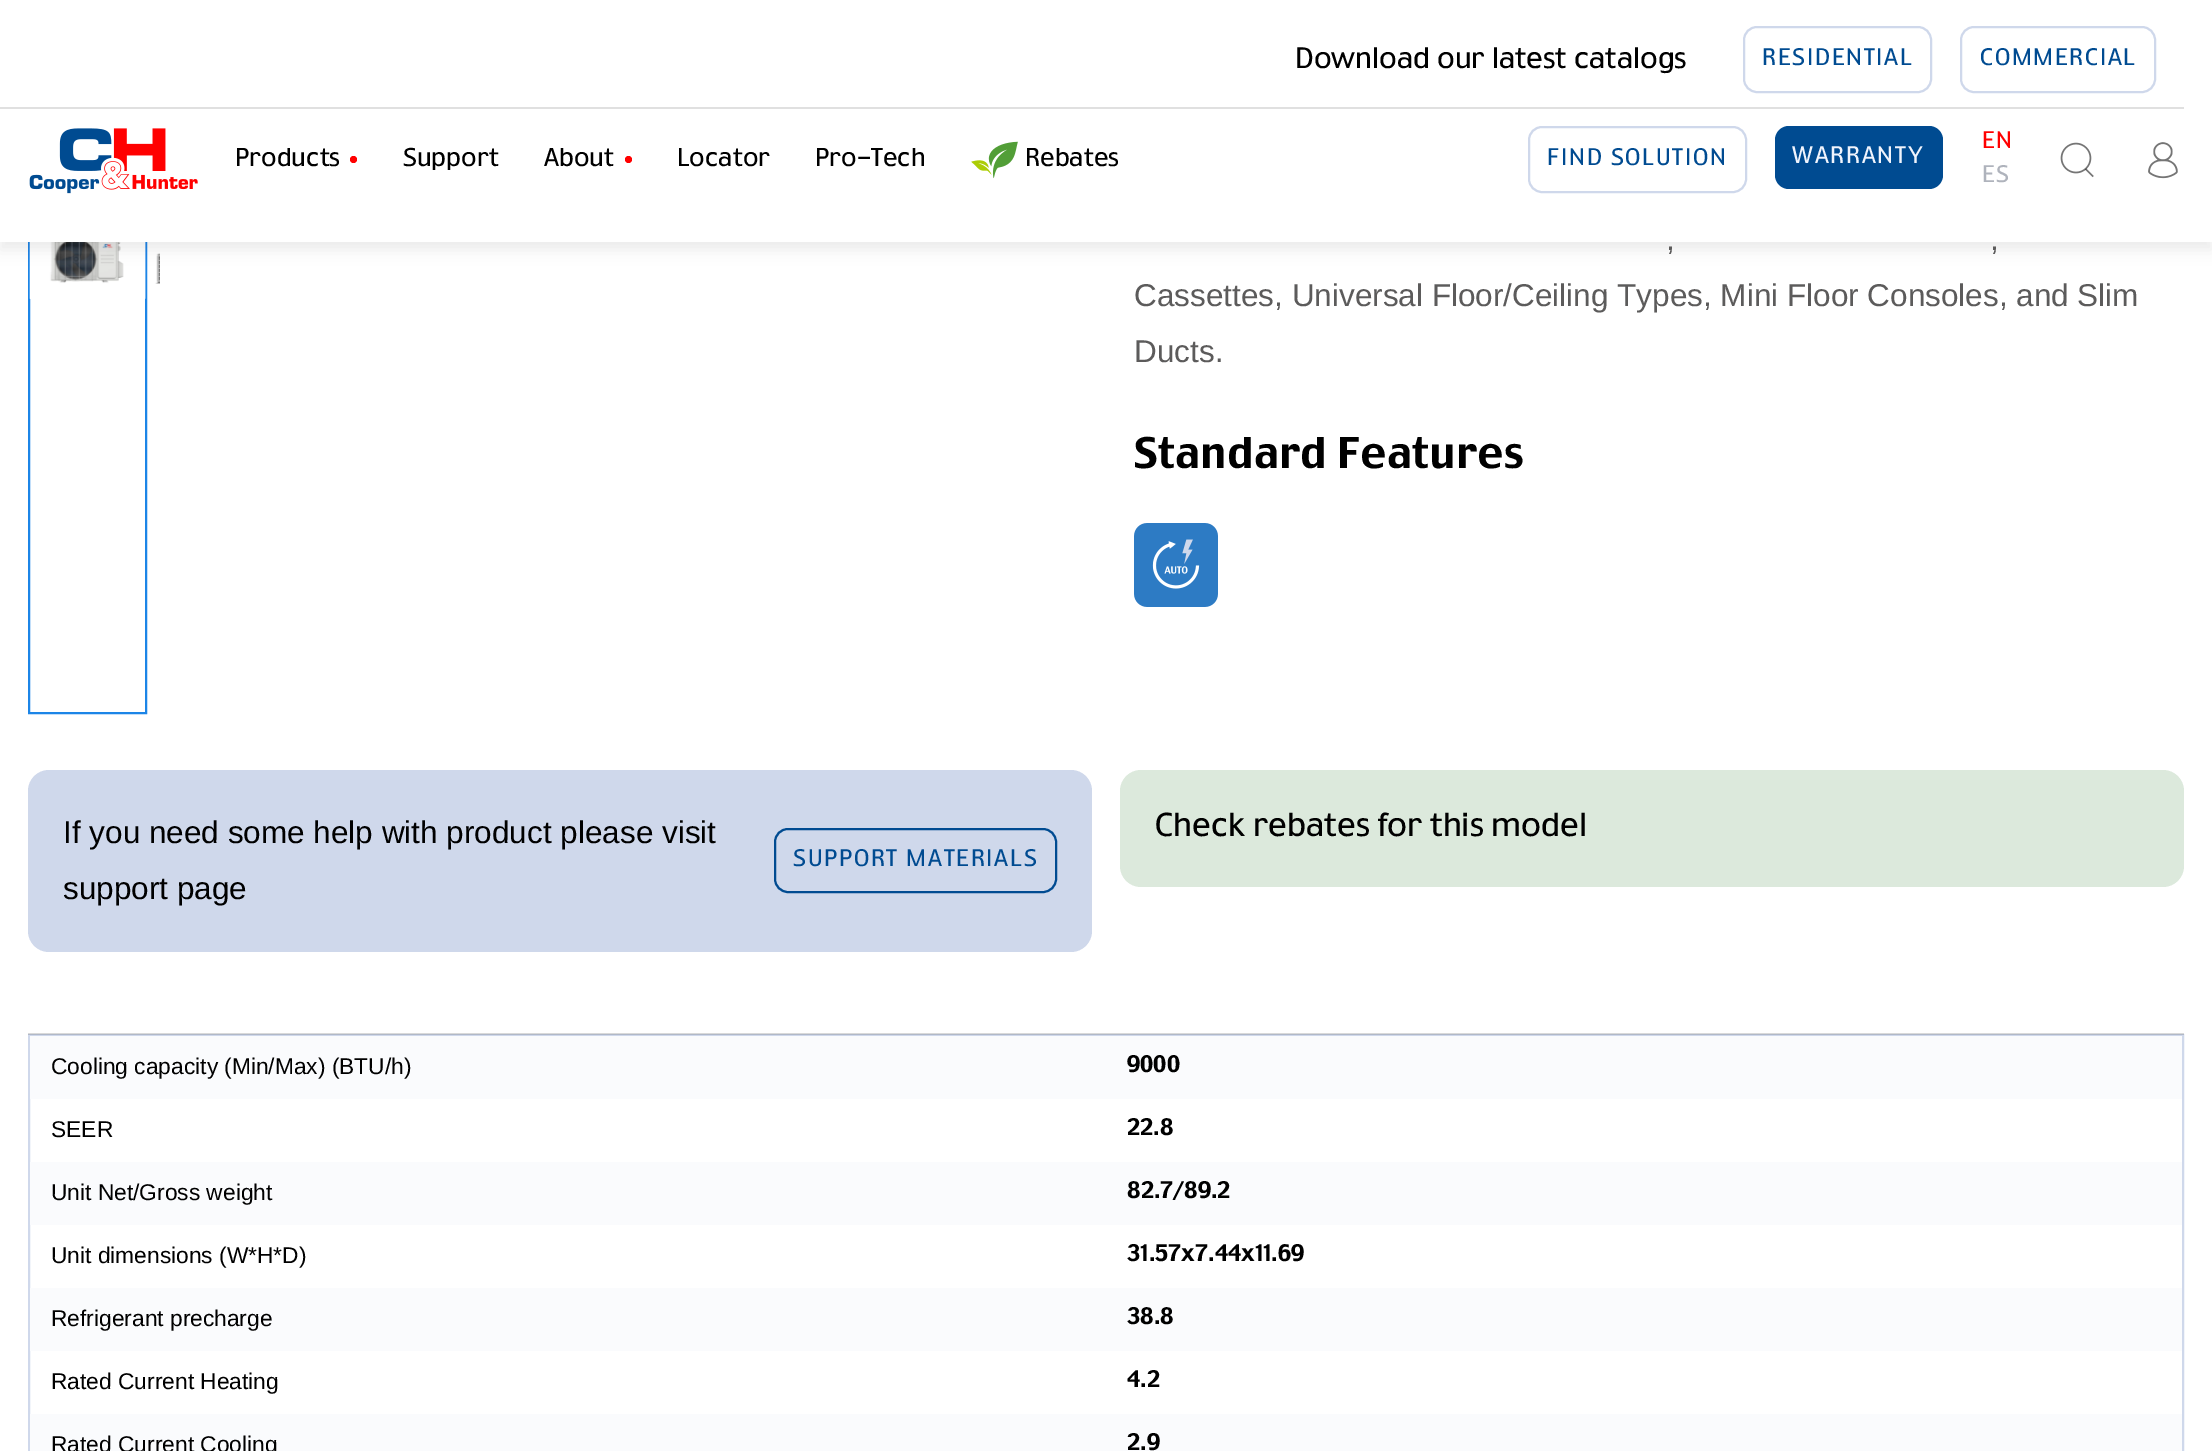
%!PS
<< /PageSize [2212 1451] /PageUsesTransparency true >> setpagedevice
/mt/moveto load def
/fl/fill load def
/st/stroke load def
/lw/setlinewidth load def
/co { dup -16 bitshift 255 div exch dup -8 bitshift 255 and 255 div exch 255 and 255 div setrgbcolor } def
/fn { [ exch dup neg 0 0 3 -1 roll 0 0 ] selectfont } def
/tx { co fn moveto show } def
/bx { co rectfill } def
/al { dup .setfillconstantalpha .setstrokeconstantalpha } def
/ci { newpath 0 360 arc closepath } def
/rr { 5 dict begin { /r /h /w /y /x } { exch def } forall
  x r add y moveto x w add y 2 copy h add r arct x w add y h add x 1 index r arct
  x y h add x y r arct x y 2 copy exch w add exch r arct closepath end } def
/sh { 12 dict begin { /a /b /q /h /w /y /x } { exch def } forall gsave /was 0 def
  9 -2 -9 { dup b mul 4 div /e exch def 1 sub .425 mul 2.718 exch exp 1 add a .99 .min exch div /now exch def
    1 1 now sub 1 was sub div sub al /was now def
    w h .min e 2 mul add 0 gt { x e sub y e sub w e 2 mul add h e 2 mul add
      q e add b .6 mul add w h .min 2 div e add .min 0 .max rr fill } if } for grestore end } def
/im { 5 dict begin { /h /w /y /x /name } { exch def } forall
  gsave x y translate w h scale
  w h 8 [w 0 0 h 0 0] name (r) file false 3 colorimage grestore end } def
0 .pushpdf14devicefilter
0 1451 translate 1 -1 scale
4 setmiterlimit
0 0 2212 1451 16#FFFFFF bx
16#1C85E7 co
2 lw
29 -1 117 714 rectstroke
(media/5.raw) 29 242 117 57 im
(media/6.raw) 155 253 5 31 im
16#000000 co
0 9 2212 241 0 7 .07 sh
0 0 2212 242 16#FFFFFF bx
16#CFD8EB co
1744 27 187 65 13 rr st
1961 27 194 65 13 rr st
0 107 2184 2 16#E0E0E0 bx
(media/1.raw) 29 128 169 66 im
16#FF0000 co
353.5 159.5 3.5 ci fl
628.5 159.5 3.5 ci fl
(media/2.raw) 971 141 47 38 im
16#CFD8EB co
1529 127 217 65 13 rr st
16#004B91 co
1775 126 168 63 14 rr fl
(media/3.raw) 2060 142 34 36 im
(media/4.raw) 2148 142 30 37 im
16#CFD8EB co
29 1035 2154 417 rectstroke
0.15 al
28 1033 2156 2 16#000000 bx
1 al
(media/7.raw) 1134 523 84 84 im
16#CFD8EB co
28 770 1064 182 21 rr fl
16#004B91 co
775 829 281 63 13 rr st
16#DCE9DC co
1120 770 1064 117 21 rr fl
30 1036 2152 63 16#FAFBFD bx
30 1162 2152 63 16#FAFBFD bx
30 1288 2152 63 16#FAFBFD bx
30 1414 2152 37 16#FAFBFD bx
(Download our latest catalogs) 1295 68 /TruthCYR-Regular 28 16#000000 tx
/TruthCYR-Regular 22.75 fn
16#004B91 co
1762 65 mt 1.75 0 (RESIDENTIAL) ashow
1980 65 mt 1.75 0 (COMMERCIAL) ashow
(Products) 235 166 /TruthCYR-Regular 24.5 16#000000 tx
(Support) 403 166 /TruthCYR-Regular 24.5 16#000000 tx
(About) 544 166 /TruthCYR-Regular 24.5 16#000000 tx
(Locator) 677 166 /TruthCYR-Regular 24.5 16#000000 tx
(Pro-Tech) 815 166 /TruthCYR-Regular 24.5 16#000000 tx
(Rebates) 1025 166 /TruthCYR-Regular 24.5 16#000000 tx
/TruthCYR-Regular 22.75 fn
16#004B91 co
1547 165 mt 1.75 0 (FIND SOLUTION) ashow
16#F0F4FD co
1792 163 mt 1.75 0 (WARRANTY) ashow
16#FF0000 co
1982 148 mt 1.75 0 (EN) ashow
16#AFB3BC co
1982 182 mt 1.75 0 (ES) ashow
(,) 1666 250 /LiberationSans-Regular 31.5 16#5C5B5B tx
(,) 1990 250 /LiberationSans-Regular 31.5 16#5C5B5B tx
(Cassettes, Universal Floor/Ceiling Types, Mini Floor Consoles, and Slim) 1134 306 /LiberationSans-Regular 31.5 16#5C5B5B tx
(Ducts.) 1134 362 /LiberationSans-Regular 31.5 16#5C5B5B tx
(Standard Features) 1134 468 /TruthCYR-Medium 42 16#000000 tx
(If you need some help with product please visit) 63 843 /LiberationSans-Regular 31.5 16#000000 tx
(support page) 63 899 /LiberationSans-Regular 31.5 16#000000 tx
/TruthCYR-Regular 22.75 fn
16#004B91 co
793 866 mt 1.75 0 (SUPPORT MATERIALS) ashow
(Check rebates for this model) 1155 836 /TruthCYR-Regular 31.5 16#000000 tx
(Cooling capacity \(Min/Max\) \(BTU/h\)) 51 1074 /LiberationSans-Regular 22.75 16#000000 tx
(9000) 1127 1072 /TruthCYR-Medium 22.75 16#000000 tx
(SEER) 51 1137 /LiberationSans-Regular 22.75 16#000000 tx
(22.8) 1127 1135 /TruthCYR-Medium 22.75 16#000000 tx
(Unit Net/Gross weight) 51 1200 /LiberationSans-Regular 22.75 16#000000 tx
(82.7/89.2) 1127 1198 /TruthCYR-Medium 22.75 16#000000 tx
(Unit dimensions \(W*H*D\)) 51 1263 /LiberationSans-Regular 22.75 16#000000 tx
(31.57x7.44x11.69) 1127 1261 /TruthCYR-Medium 22.75 16#000000 tx
(Refrigerant precharge) 51 1326 /LiberationSans-Regular 22.75 16#000000 tx
(38.8) 1127 1324 /TruthCYR-Medium 22.75 16#000000 tx
(Rated Current Heating) 51 1389 /LiberationSans-Regular 22.75 16#000000 tx
(4.2) 1127 1387 /TruthCYR-Medium 22.75 16#000000 tx
(Rated Current Cooling) 51 1452 /LiberationSans-Regular 22.75 16#000000 tx
(2.9) 1127 1450 /TruthCYR-Medium 22.75 16#000000 tx
.poppdf14devicefilter showpage
